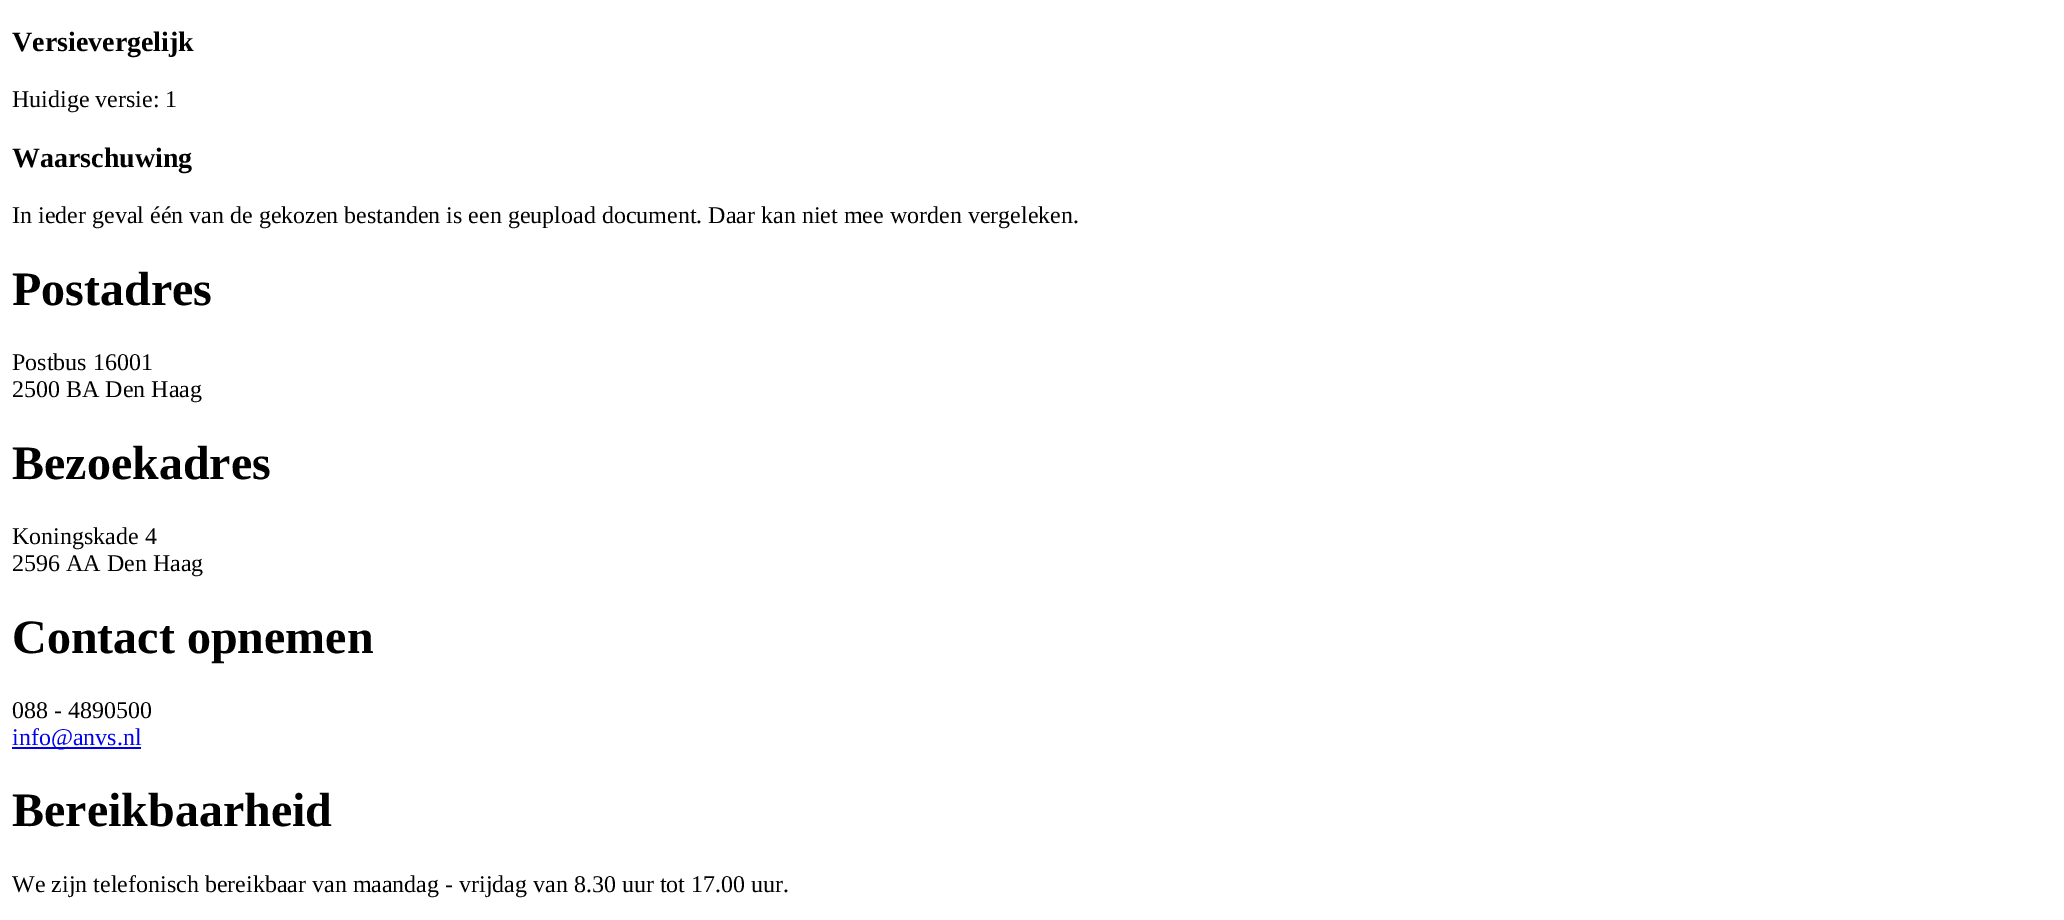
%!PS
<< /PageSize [2064 920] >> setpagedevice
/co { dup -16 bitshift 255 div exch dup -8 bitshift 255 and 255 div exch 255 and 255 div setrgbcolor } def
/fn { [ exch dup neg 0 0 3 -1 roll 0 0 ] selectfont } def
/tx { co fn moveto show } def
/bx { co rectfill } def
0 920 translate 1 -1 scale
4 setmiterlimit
0 0 2064 920 16#FFFFFF bx
12 747 129 2 16#0000EE bx
(Versievergelijk) 12 51 /LiberationSerif-Bold 28 16#000000 tx
(Huidige versie: 1) 12 107 /LiberationSerif-Regular 24 16#000000 tx
(Waarschuwing) 12 167 /LiberationSerif-Bold 28 16#000000 tx
(In ieder geval één van de gekozen bestanden is een geupload document. Daar kan niet mee worden vergeleken.) 12 223 /LiberationSerif-Regular 24 16#000000 tx
(Postadres) 12 305 /LiberationSerif-Bold 48 16#000000 tx
(Postbus 16001) 12 370 /LiberationSerif-Regular 24 16#000000 tx
(2500 BA Den Haag) 12 397 /LiberationSerif-Regular 24 16#000000 tx
(Bezoekadres) 12 479 /LiberationSerif-Bold 48 16#000000 tx
(Koningskade 4) 12 544 /LiberationSerif-Regular 24 16#000000 tx
(2596 AA Den Haag) 12 571 /LiberationSerif-Regular 24 16#000000 tx
(Contact opnemen) 12 653 /LiberationSerif-Bold 48 16#000000 tx
(088 - 4890500) 12 718 /LiberationSerif-Regular 24 16#000000 tx
(info@anvs.nl) 12 745 /LiberationSerif-Regular 24 16#0000EE tx
(Bereikbaarheid) 12 826 /LiberationSerif-Bold 48 16#000000 tx
(We zijn telefonisch bereikbaar van maandag - vrijdag van 8.30 uur tot 17.00 uur.) 12 892 /LiberationSerif-Regular 24 16#000000 tx
showpage
